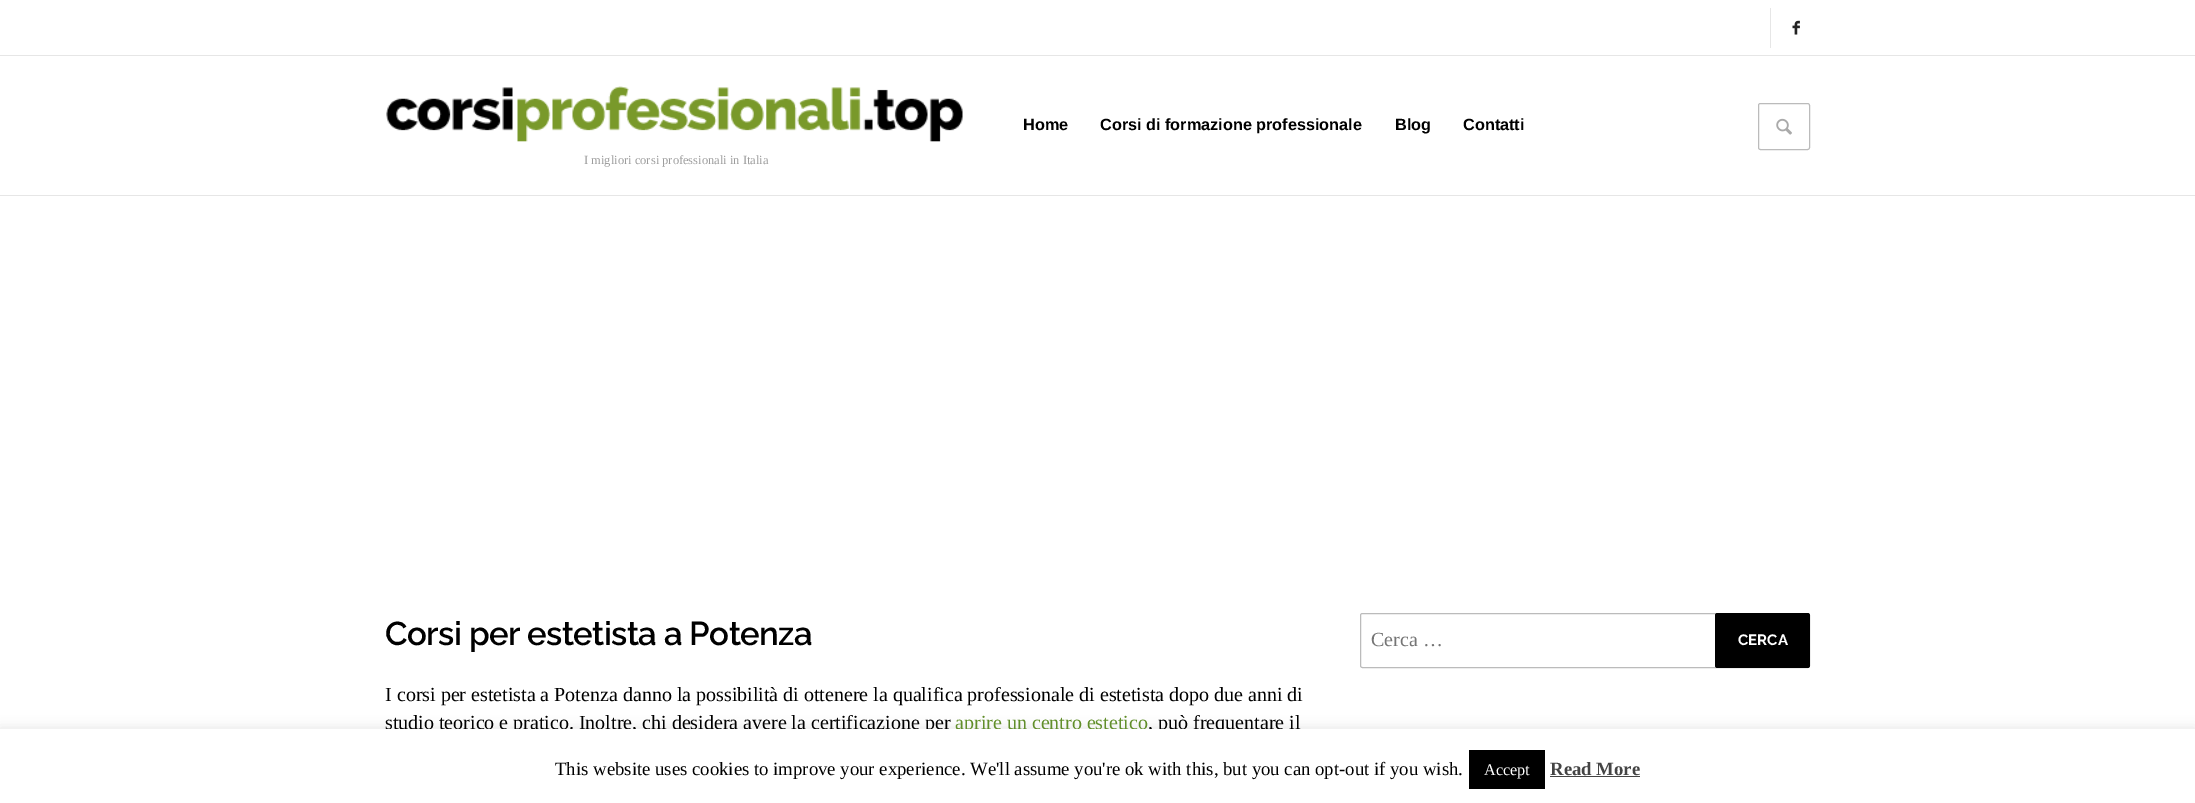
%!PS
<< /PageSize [2195 803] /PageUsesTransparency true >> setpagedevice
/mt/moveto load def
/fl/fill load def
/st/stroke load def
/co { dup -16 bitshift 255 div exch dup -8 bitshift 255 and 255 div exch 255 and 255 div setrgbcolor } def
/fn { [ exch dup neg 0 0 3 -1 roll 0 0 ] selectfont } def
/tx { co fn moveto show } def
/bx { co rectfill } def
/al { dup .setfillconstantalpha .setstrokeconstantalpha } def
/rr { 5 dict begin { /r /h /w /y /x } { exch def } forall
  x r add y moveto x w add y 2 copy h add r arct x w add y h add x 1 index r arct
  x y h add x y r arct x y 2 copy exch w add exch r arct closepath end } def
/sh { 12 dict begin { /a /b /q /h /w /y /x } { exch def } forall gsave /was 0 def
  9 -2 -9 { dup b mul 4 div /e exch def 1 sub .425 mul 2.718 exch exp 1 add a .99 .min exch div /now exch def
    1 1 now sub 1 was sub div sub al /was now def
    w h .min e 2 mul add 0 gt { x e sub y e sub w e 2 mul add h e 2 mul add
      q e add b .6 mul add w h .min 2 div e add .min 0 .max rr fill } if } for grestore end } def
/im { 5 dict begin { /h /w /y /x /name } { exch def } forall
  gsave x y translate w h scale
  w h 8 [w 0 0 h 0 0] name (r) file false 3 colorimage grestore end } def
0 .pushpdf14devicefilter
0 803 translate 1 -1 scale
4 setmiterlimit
0 0 2195 803 16#FFFFFF bx
1770 8 1 40 16#E6E6E6 bx
(media/1.raw) 1792 20 8 15 im
0 55 2195 1 16#E6E6E6 bx
0 195 2195 1 16#E6E6E6 bx
16#BBBBBB co
1758.5 103.5 51 46 2 rr st
(media/2.raw) 1776 118 16 17 im
(media/3.raw) 386 86 577 56 im
1360.5 613.5 449 54 2 rr st
16#000000 co
1715 613 95 55 2.5 rr fl
16#ACABAB co
0 728 2195 75 0 6 .3 sh
(Home) 1023 130 /LiberationSans-Bold 16.25 16#000000 tx
(Corsi di formazione professionale) 1100 130 /LiberationSans-Bold 16.25 16#000000 tx
(Blog) 1395 130 /LiberationSans-Bold 16.25 16#000000 tx
(Contatti) 1463 130 /LiberationSans-Bold 16.25 16#000000 tx
(I migliori corsi professionali in Italia) 584 164 /LiberationSerif-Regular 12.5 16#9C9C9C tx
/Raleway-SemiBold 33 fn
16#000000 co
385 645 mt -.6 0 (Corsi per estetista a Potenza) ashow
(I corsi per estetista a Potenza danno la possibilità di ottenere la qualifica professionale di estetista dopo due anni di) 385 701 /LiberationSerif-Regular 20 16#000000 tx
(studio teorico e pratico. Inoltre, chi desidera avere la certificazione per) 385 729 /LiberationSerif-Regular 20 16#000000 tx
(aprire un centro estetico) 955 729 /LiberationSerif-Regular 20 16#618E2A tx
(, può frequentare il) 1148 729 /LiberationSerif-Regular 20 16#000000 tx
(Cerca …) 1371 646 /LiberationSerif-Regular 20 16#757575 tx
(CERCA) 1738 645 /Raleway-Bold 15 16#FFFFFF tx
0 729 2195 74 16#FFFFFF bx
(This website uses cookies to improve your experience. We'll assume you're ok with this, but you can opt-out if you wish.) 555 775 /LiberationSerif-Regular 18.75 16#000000 tx
1469 750 76 39 16#000000 bx
(Accept) 1484 775 /LiberationSerif-Regular 16.25 16#FFFFFF tx
(Read More) 1550 775 /LiberationSerif-Bold 18.75 16#444444 tx
1550 776 90 1 16#444444 bx
.poppdf14devicefilter showpage
